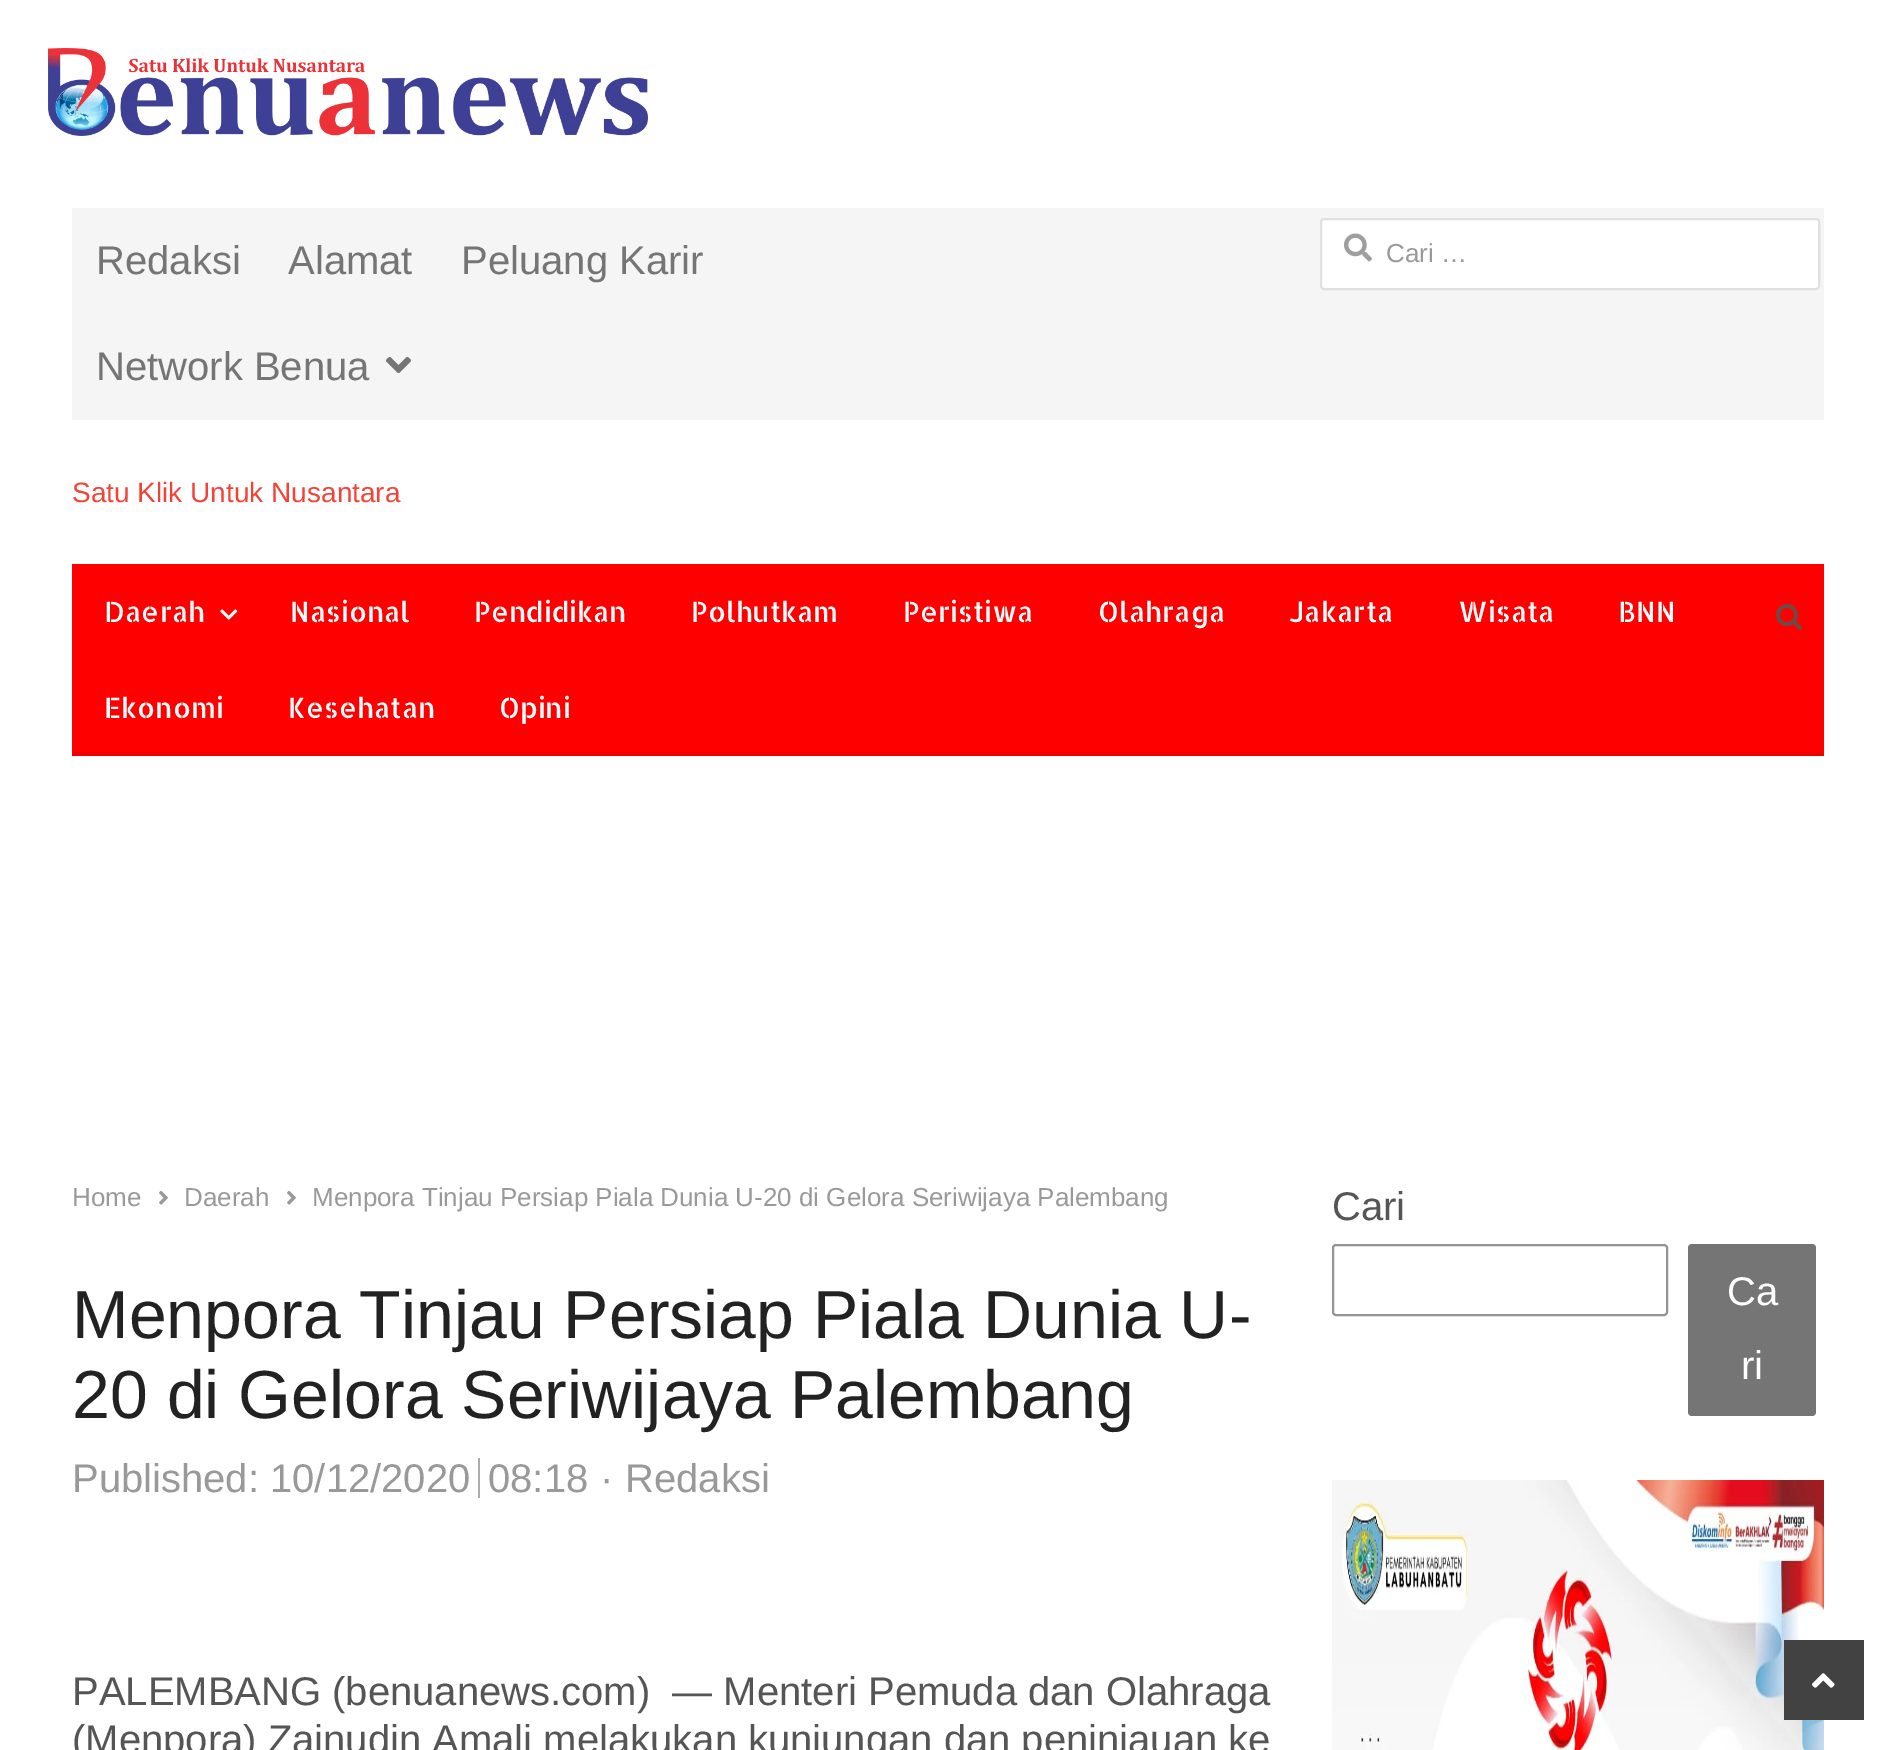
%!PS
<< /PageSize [1896 1750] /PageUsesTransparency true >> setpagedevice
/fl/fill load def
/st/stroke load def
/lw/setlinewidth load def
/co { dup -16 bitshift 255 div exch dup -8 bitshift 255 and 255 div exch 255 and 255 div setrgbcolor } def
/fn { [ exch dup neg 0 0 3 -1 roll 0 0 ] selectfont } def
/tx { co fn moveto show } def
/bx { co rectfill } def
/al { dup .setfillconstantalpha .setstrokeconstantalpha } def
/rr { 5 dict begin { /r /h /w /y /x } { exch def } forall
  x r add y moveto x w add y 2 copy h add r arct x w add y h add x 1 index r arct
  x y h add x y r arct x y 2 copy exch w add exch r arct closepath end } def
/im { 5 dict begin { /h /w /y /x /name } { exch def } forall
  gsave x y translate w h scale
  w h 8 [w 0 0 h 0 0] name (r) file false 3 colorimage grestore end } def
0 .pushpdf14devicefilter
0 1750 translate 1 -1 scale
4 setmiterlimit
0 0 1896 1750 16#FFFFFF bx
(media/1.raw) 48 48 600 88 im
72 208 1752 212 16#F5F5F5 bx
(media/2.raw) 386 357 25 16 im
16#FFFFFF co
1320 218 500 72 4 rr fl
0.12 al
16#000000 co
2 lw
1321 219 498 70 3 rr st
1 al
(media/3.raw) 1344 233 28 29 im
72 564 1752 188 16#FF0000 bx
72 752 1752 4 16#F00000 bx
(media/4.raw) 220 609 18 11 im
(media/5.raw) 1776 604 26 26 im
(media/6.raw) 159 1190 9 15 im
(media/6.raw) 287 1190 9 15 im
478 1458 2 40 16#ACACAC bx
16#949494 co
1333 1245 334 70 3 rr st
16#757575 co
1688 1244 128 172 4 rr fl
(media/7.raw) 1332 1480 492 270 im
1784 1640 80 80 16#424242 bx
(media/8.raw) 1812 1673 23 15 im
(Redaksi) 96 274 /LiberationSans-Regular 40 16#757575 tx
(Alamat) 288 274 /LiberationSans-Regular 40 16#757575 tx
(Peluang Karir) 461 274 /LiberationSans-Regular 40 16#757575 tx
(Network Benua) 96 380 /LiberationSans-Regular 40 16#757575 tx
(Cari …) 1386 262 /LiberationSans-Regular 26 16#999999 tx
(Satu Klik Untuk Nusantara) 72 502 /LiberationSans-Regular 28 16#F44336 tx
(Daerah) 104 622 /AllertaStencil-Regular 28 16#FFFFFF tx
(Nasional) 290 622 /AllertaStencil-Regular 28 16#FFFFFF tx
(Pendidikan) 474 622 /AllertaStencil-Regular 28 16#FFFFFF tx
(Polhutkam) 691 622 /AllertaStencil-Regular 28 16#FFFFFF tx
(Peristiwa) 903 622 /AllertaStencil-Regular 28 16#FFFFFF tx
(Olahraga) 1098 622 /AllertaStencil-Regular 28 16#FFFFFF tx
(Jakarta) 1289 622 /AllertaStencil-Regular 28 16#FFFFFF tx
(Wisata) 1458 622 /AllertaStencil-Regular 28 16#FFFFFF tx
(BNN) 1618 622 /AllertaStencil-Regular 28 16#FFFFFF tx
(Ekonomi) 104 718 /AllertaStencil-Regular 28 16#FFFFFF tx
(Kesehatan) 288 718 /AllertaStencil-Regular 28 16#FFFFFF tx
(Opini) 499 718 /AllertaStencil-Regular 28 16#FFFFFF tx
(Home) 72 1206 /LiberationSans-Regular 26 16#999999 tx
(Daerah) 184 1206 /LiberationSans-Regular 26 16#999999 tx
(Menpora Tinjau Persiap Piala Dunia U-20 di Gelora Seriwijaya Palembang) 312 1206 /LiberationSans-Regular 26 16#999999 tx
(Menpora Tinjau Persiap Piala Dunia U-) 72 1338 /LiberationSans-Regular 68 16#222222 tx
(20 di Gelora Seriwijaya Palembang) 72 1418 /LiberationSans-Regular 68 16#222222 tx
(Published: 10/12/2020) 72 1492 /LiberationSans-Regular 40 16#999999 tx
(08:18) 488 1492 /LiberationSans-Regular 40 16#999999 tx
(·) 600 1492 /LiberationSans-Regular 40 16#999999 tx
(Redaksi) 625 1492 /LiberationSans-Regular 40 16#999999 tx
(PALEMBANG \(benuanews.com\)  — Menteri Pemuda dan Olahraga) 72 1705 /LiberationSans-Regular 40 16#555555 tx
(\(Menpora\) Zainudin Amali melakukan kunjungan dan peninjauan ke) 72 1753 /LiberationSans-Regular 40 16#555555 tx
(Cari) 1332 1220 /LiberationSans-Regular 40 16#555555 tx
(Ca) 1727 1305 /LiberationSans-Regular 40 16#FFFFFF tx
(ri) 1741 1379 /LiberationSans-Regular 40 16#FFFFFF tx
.poppdf14devicefilter showpage
